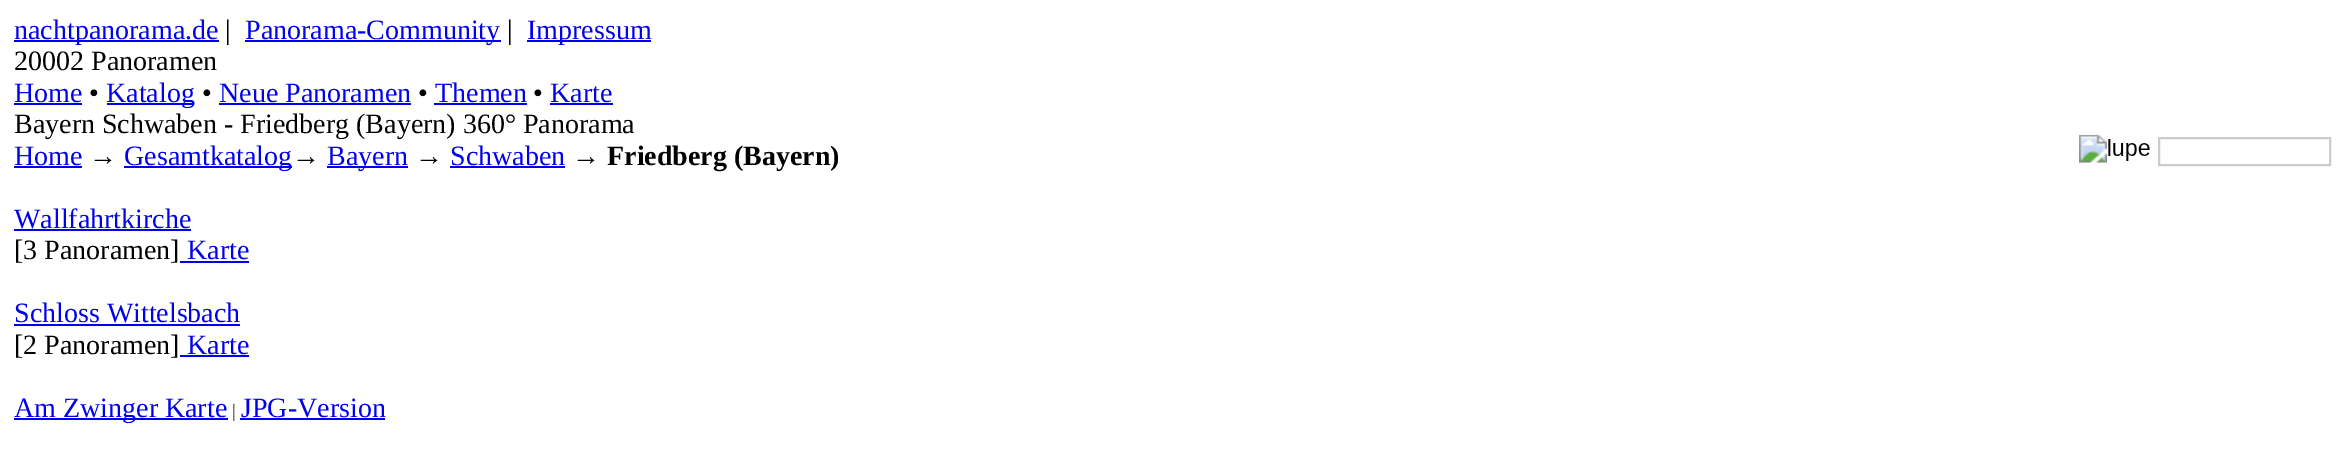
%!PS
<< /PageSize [2347 455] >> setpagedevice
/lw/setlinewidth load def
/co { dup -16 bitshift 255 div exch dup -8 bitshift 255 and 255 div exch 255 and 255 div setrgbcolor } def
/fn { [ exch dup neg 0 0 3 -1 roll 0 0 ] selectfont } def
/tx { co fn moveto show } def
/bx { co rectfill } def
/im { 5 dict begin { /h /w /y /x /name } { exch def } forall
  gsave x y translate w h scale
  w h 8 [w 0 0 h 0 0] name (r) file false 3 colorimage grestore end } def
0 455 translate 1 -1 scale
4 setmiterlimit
0 0 2347 455 16#FFFFFF bx
14 40 205 2 16#0000EE bx
245 40 256 2 16#0000EE bx
527 40 124 2 16#0000EE bx
14 103 68 2 16#0000EE bx
107 103 87 2 16#0000EE bx
219 103 192 2 16#0000EE bx
434 103 93 2 16#0000EE bx
550 103 63 2 16#0000EE bx
(media/1.raw) 2079 134 71 29 im
16#CCCCCC co
2 lw
2159 138 171 27 rectstroke
14 166 68 2 16#0000EE bx
124 166 168 2 16#0000EE bx
327 166 81 2 16#0000EE bx
450 166 115 2 16#0000EE bx
14 229 177 2 16#0000EE bx
180 261 69 2 16#0000EE bx
14 324 226 2 16#0000EE bx
180 355 69 2 16#0000EE bx
14 418 214 2 16#0000EE bx
240 418 145 2 16#0000EE bx
(nachtpanorama.de) 14 39 /LiberationSerif-Regular 28 16#0000EE tx
(|) 225 39 /LiberationSerif-Regular 28 16#000000 tx
(Panorama-Community) 245 39 /LiberationSerif-Regular 28 16#0000EE tx
(|) 507 39 /LiberationSerif-Regular 28 16#000000 tx
(Impressum) 527 39 /LiberationSerif-Regular 28 16#0000EE tx
(20002 Panoramen) 14 70 /LiberationSerif-Regular 28 16#000000 tx
(Home) 14 102 /LiberationSerif-Regular 28 16#0000EE tx
(•) 89 102 /LiberationSerif-Regular 28 16#000000 tx
(Katalog) 106 102 /LiberationSerif-Regular 28 16#0000EE tx
(•) 202 102 /LiberationSerif-Regular 28 16#000000 tx
(Neue Panoramen) 219 102 /LiberationSerif-Regular 28 16#0000EE tx
(•) 418 102 /LiberationSerif-Regular 28 16#000000 tx
(Themen) 435 102 /LiberationSerif-Regular 28 16#0000EE tx
(•) 533 102 /LiberationSerif-Regular 28 16#000000 tx
(Karte) 550 102 /LiberationSerif-Regular 28 16#0000EE tx
(Bayern Schwaben - Friedberg \(Bayern\) 360° Panorama) 14 133 /LiberationSerif-Regular 28 16#000000 tx
(Home) 14 165 /LiberationSerif-Regular 28 16#0000EE tx
(→) 89 165 /LiberationSerif-Regular 28 16#000000 tx
(Gesamtkatalog) 124 165 /LiberationSerif-Regular 28 16#0000EE tx
(→) 292 165 /LiberationSerif-Regular 28 16#000000 tx
(Bayern) 327 165 /LiberationSerif-Regular 28 16#0000EE tx
(→) 415 165 /LiberationSerif-Regular 28 16#000000 tx
(Schwaben) 450 165 /LiberationSerif-Regular 28 16#0000EE tx
(→) 572 165 /LiberationSerif-Regular 28 16#000000 tx
(Friedberg \(Bayern\)) 607 165 /LiberationSerif-Bold 28 16#000000 tx
(Wallfahrtkirche) 14 228 /LiberationSerif-Regular 28 16#0000EE tx
([3 Panoramen]) 14 259 /LiberationSerif-Regular 28 16#000000 tx
(Karte) 187 259 /LiberationSerif-Regular 28 16#0000EE tx
(Schloss Wittelsbach) 14 322 /LiberationSerif-Regular 28 16#0000EE tx
([2 Panoramen]) 14 354 /LiberationSerif-Regular 28 16#000000 tx
(Karte) 187 354 /LiberationSerif-Regular 28 16#0000EE tx
(Am Zwinger Karte) 14 417 /LiberationSerif-Regular 28 16#0000EE tx
(|) 232 417 /LiberationSerif-Regular 19 16#000000 tx
(JPG-Version) 241 417 /LiberationSerif-Regular 28 16#0000EE tx
showpage
